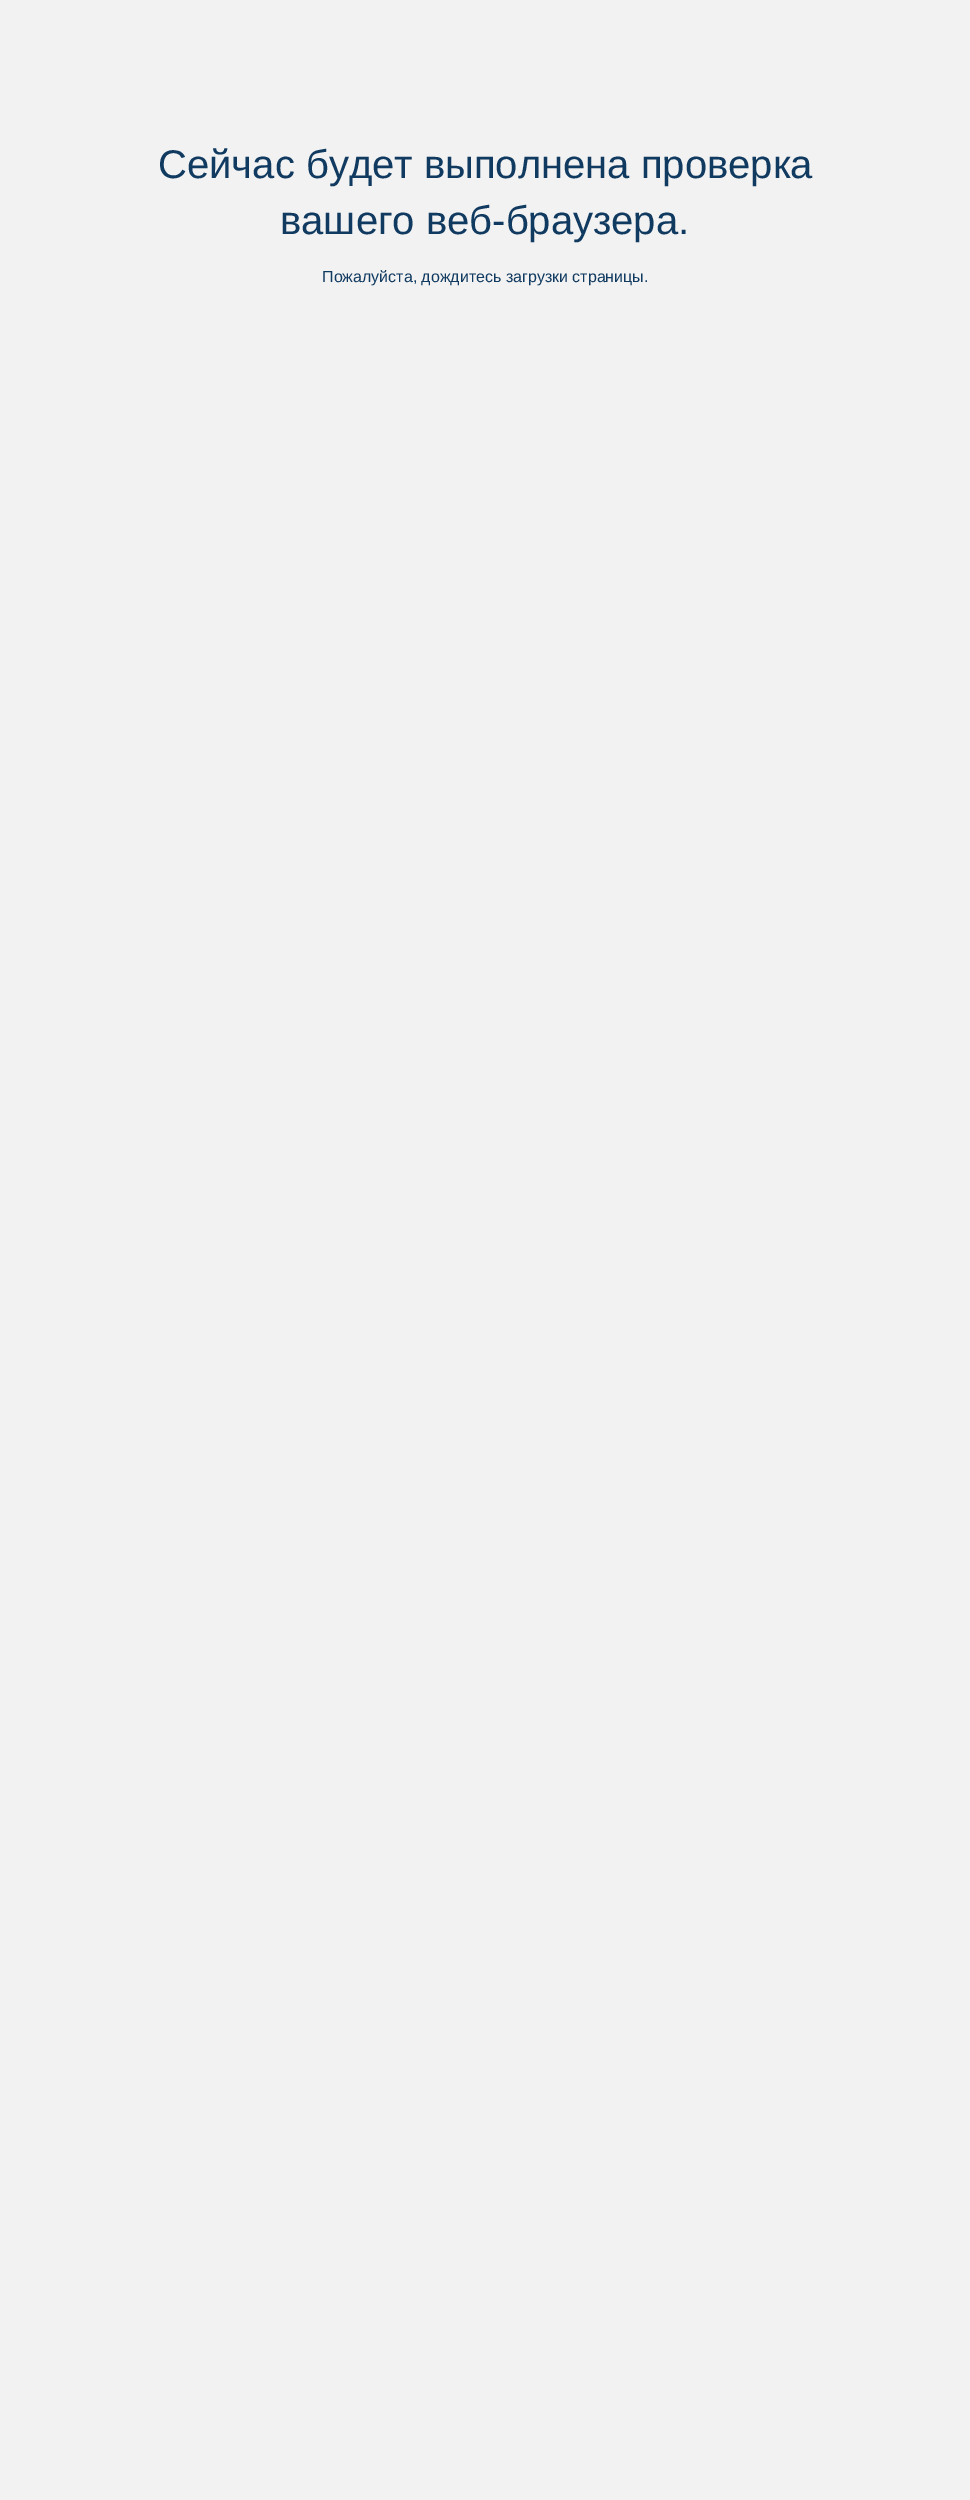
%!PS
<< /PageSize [970 2500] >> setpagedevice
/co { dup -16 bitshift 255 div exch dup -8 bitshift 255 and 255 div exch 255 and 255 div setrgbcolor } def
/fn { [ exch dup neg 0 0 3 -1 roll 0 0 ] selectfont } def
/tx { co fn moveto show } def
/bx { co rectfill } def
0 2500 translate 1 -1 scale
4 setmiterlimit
0 0 970 2500 16#F2F2F2 bx
(Сейчас будет выполнена проверка) 158 178 /LiberationSans-Regular 40 16#113A60 tx
(вашего веб-браузера.) 280 234 /LiberationSans-Regular 40 16#113A60 tx
(Пожалуйста, дождитесь загрузки страницы.) 322 282 /LiberationSans-Regular 16 16#113A60 tx
showpage
